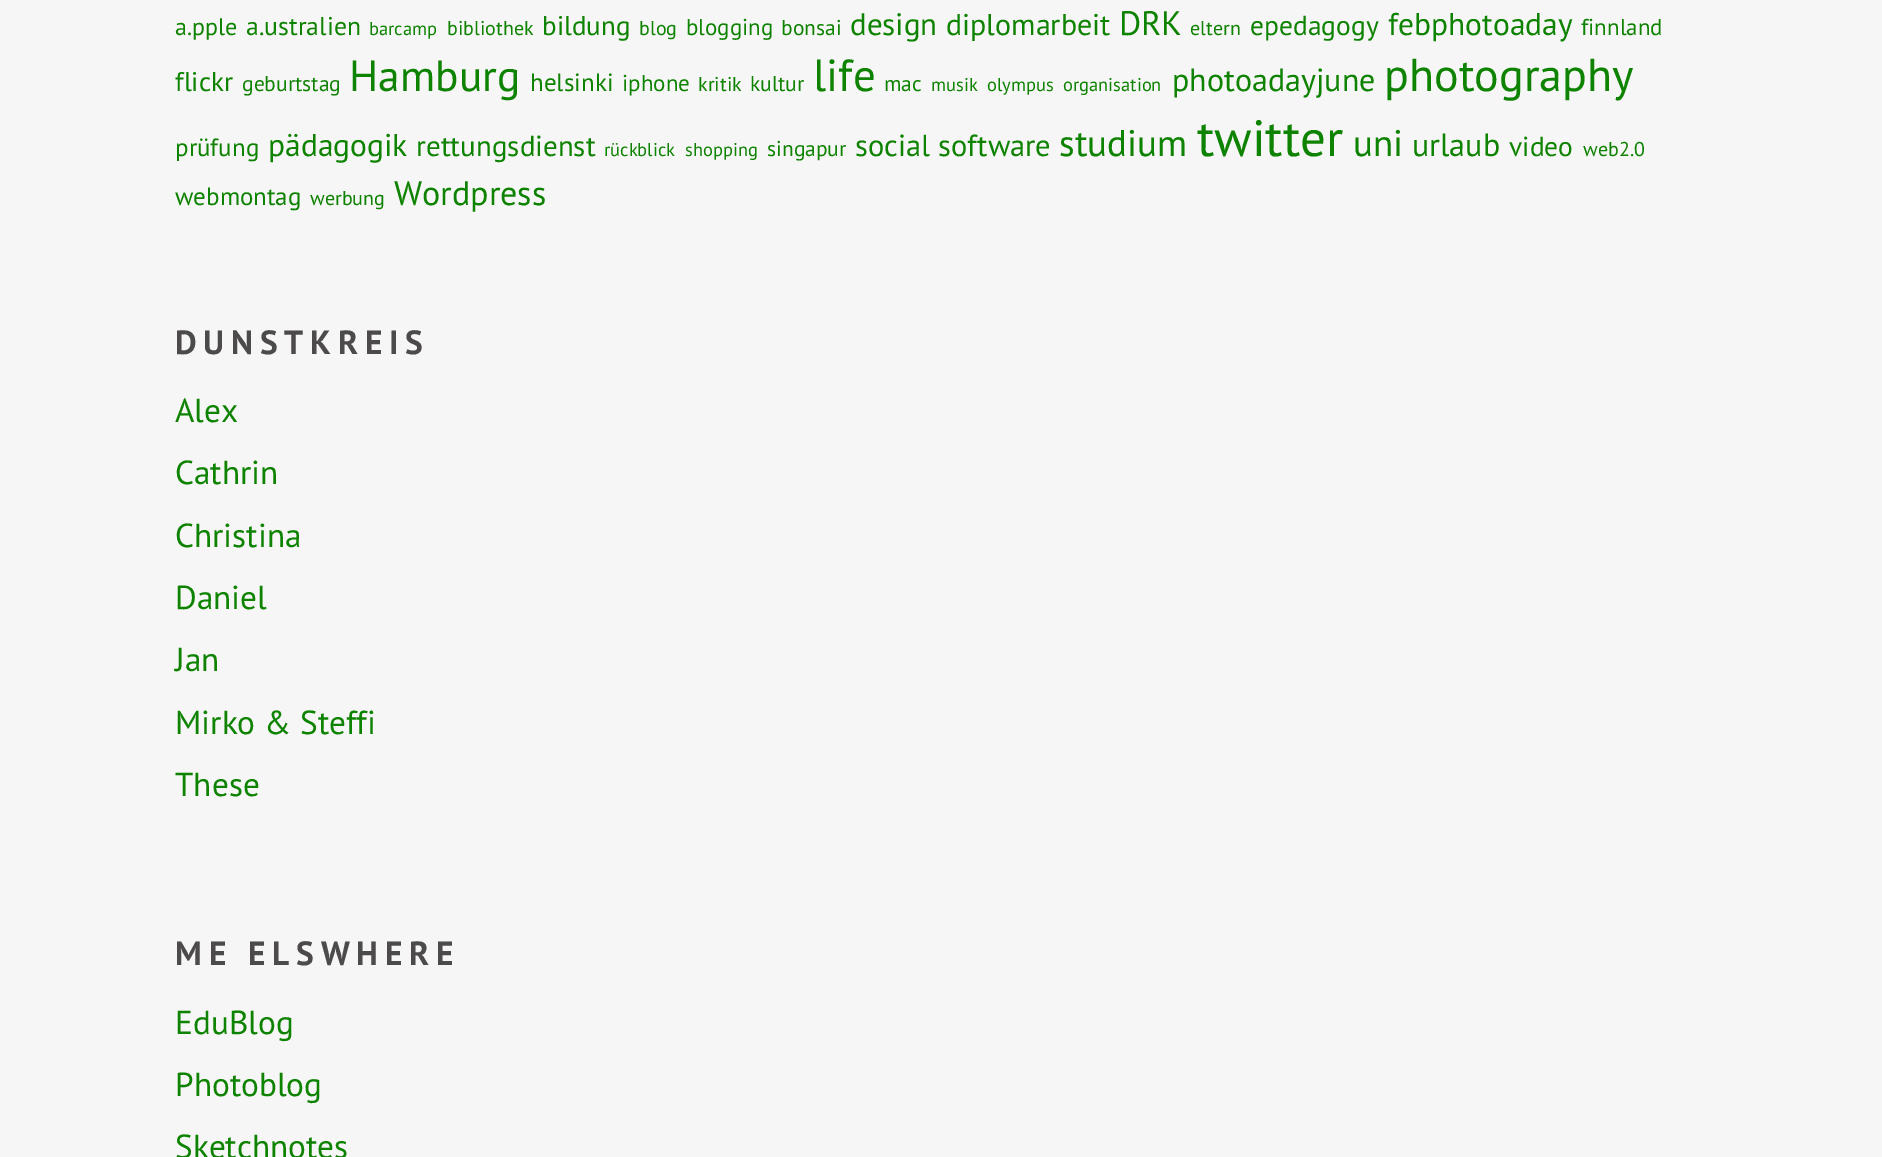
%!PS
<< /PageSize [1882 1157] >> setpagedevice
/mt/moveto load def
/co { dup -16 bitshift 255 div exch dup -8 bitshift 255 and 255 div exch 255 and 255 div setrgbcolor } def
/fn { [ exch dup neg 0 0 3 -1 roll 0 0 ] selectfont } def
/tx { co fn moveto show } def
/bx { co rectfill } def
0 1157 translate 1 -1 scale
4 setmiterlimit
0 0 1882 1157 16#F6F6F6 bx
(a.pple) 175 35 /PTSans-Regular 24 16#0E8302 tx
(a.ustralien) 246 35 /PTSans-Regular 25.75 16#0E8302 tx
(barcamp) 369 35 /PTSans-Regular 18.5 16#0E8302 tx
(bibliothek) 447 35 /PTSans-Regular 20 16#0E8302 tx
(bildung) 542 35 /PTSans-Regular 27 16#0E8302 tx
(blog) 639 35 /PTSans-Regular 20 16#0E8302 tx
(blogging) 686 35 /PTSans-Regular 23 16#0E8302 tx
(bonsai) 781 35 /PTSans-Regular 21.5 16#0E8302 tx
(design) 850 35 /PTSans-Regular 31 16#0E8302 tx
(diplomarbeit) 946 35 /PTSans-Regular 30 16#0E8302 tx
(DRK) 1119 35 /PTSans-Regular 34 16#0E8302 tx
(eltern) 1190 35 /PTSans-Regular 20 16#0E8302 tx
(epedagogy) 1250 35 /PTSans-Regular 27.5 16#0E8302 tx
(febphotoaday) 1388 35 /PTSans-Regular 31.5 16#0E8302 tx
(finnland) 1581 35 /PTSans-Regular 23 16#0E8302 tx
(flickr) 175 91 /PTSans-Regular 27 16#0E8302 tx
(geburtstag) 242 91 /PTSans-Regular 21.5 16#0E8302 tx
(Hamburg) 349 91 /PTSans-Regular 43.5 16#0E8302 tx
(helsinki) 530 91 /PTSans-Regular 25 16#0E8302 tx
(iphone) 622 91 /PTSans-Regular 23 16#0E8302 tx
(kritik) 698 91 /PTSans-Regular 20 16#0E8302 tx
(kultur) 750 91 /PTSans-Regular 21.5 16#0E8302 tx
(life) 813 91 /PTSans-Regular 45 16#0E8302 tx
(mac) 884 91 /PTSans-Regular 21.5 16#0E8302 tx
(musik) 931 91 /PTSans-Regular 18.5 16#0E8302 tx
(olympus) 987 91 /PTSans-Regular 18.5 16#0E8302 tx
(organisation) 1063 91 /PTSans-Regular 18.5 16#0E8302 tx
(photoadayjune) 1172 91 /PTSans-Regular 32 16#0E8302 tx
(photography) 1384 91 /PTSans-Regular 46 16#0E8302 tx
(prüfung) 175 156 /PTSans-Regular 25 16#0E8302 tx
(pädagogik) 268 156 /PTSans-Regular 31.5 16#0E8302 tx
(rettungsdienst) 416 156 /PTSans-Regular 29 16#0E8302 tx
(rückblick) 604 156 /PTSans-Regular 18.5 16#0E8302 tx
(shopping) 685 156 /PTSans-Regular 18.5 16#0E8302 tx
(singapur) 767 156 /PTSans-Regular 21.5 16#0E8302 tx
(social software) 855 156 /PTSans-Regular 30.5 16#0E8302 tx
(studium) 1059 156 /PTSans-Regular 37 16#0E8302 tx
(twitter) 1197 156 /PTSans-Regular 51 16#0E8302 tx
(uni) 1353 156 /PTSans-Regular 37 16#0E8302 tx
(urlaub) 1412 156 /PTSans-Regular 32 16#0E8302 tx
(video) 1509 156 /PTSans-Regular 27.5 16#0E8302 tx
(web2.0) 1583 156 /PTSans-Regular 20 16#0E8302 tx
(webmontag) 175 205 /PTSans-Regular 25 16#0E8302 tx
(werbung) 310 205 /PTSans-Regular 20 16#0E8302 tx
(Wordpress) 394 205 /PTSans-Regular 34 16#0E8302 tx
/PTSans-Bold 33.5 fn
16#4C4A4A co
175 354 mt 6.75 0 (DUNSTKREIS) ashow
(Alex) 175 422 /PTSans-Regular 33.25 16#0E8302 tx
(Cathrin) 175 484 /PTSans-Regular 33.25 16#0E8302 tx
(Christina) 175 547 /PTSans-Regular 33.25 16#0E8302 tx
(Daniel) 175 609 /PTSans-Regular 33.25 16#0E8302 tx
(Jan) 175 671 /PTSans-Regular 33.25 16#0E8302 tx
(Mirko & Steffi) 175 734 /PTSans-Regular 33.25 16#0E8302 tx
(These) 175 796 /PTSans-Regular 33.25 16#0E8302 tx
/PTSans-Bold 33.5 fn
16#4C4A4A co
175 965 mt 6.75 0 (ME ELSWHERE) ashow
(EduBlog) 175 1034 /PTSans-Regular 33.25 16#0E8302 tx
(Photoblog) 175 1096 /PTSans-Regular 33.25 16#0E8302 tx
(Sketchnotes) 175 1158 /PTSans-Regular 33.25 16#0E8302 tx
showpage
